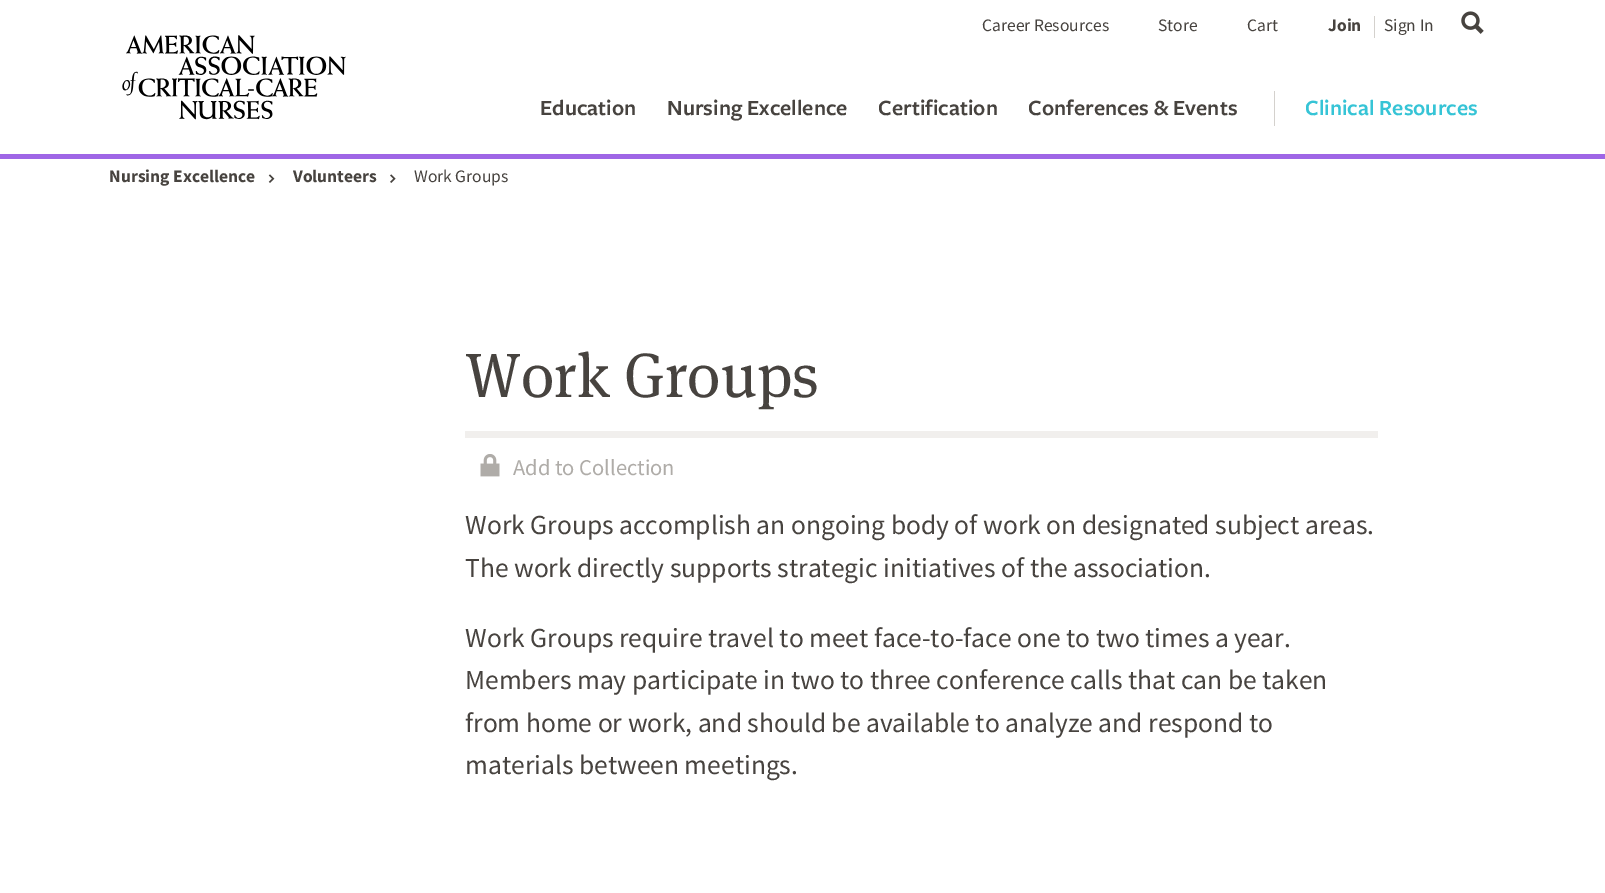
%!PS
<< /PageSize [1605 893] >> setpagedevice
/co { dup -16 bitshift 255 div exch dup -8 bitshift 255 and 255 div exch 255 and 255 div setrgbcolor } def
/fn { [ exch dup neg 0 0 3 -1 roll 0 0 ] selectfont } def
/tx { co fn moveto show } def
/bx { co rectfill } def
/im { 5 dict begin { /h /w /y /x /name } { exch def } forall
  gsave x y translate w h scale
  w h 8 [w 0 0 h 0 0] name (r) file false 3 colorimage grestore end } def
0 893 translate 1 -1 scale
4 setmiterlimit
0 0 1605 893 16#FFFFFF bx
1374 16 1 22 16#D4D1CD bx
(media/1.raw) 1461 11 23 23 im
(media/2.raw) 122 35 224 85 im
1274 91 1 35 16#D4D1CD bx
0 154 1605 5 16#9F66E6 bx
(media/3.raw) 268 174 7 9 im
(media/4.raw) 390 174 6 9 im
465 431 913 7 16#F1EFED bx
(media/5.raw) 480 454 20 23 im
(Career Resources) 982 31 /SourceSansPro-Regular 17.5 16#47433F tx
(Store) 1158 31 /SourceSansPro-Regular 17.5 16#47433F tx
(Cart) 1247 31 /SourceSansPro-Regular 17.5 16#47433F tx
(Join) 1328 31 /SourceSansPro-Bold 17.5 16#47433F tx
(Sign In) 1384 31 /SourceSansPro-Regular 17.5 16#47433F tx
(Education) 540 115 /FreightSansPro-SemiBold 22.5 16#47433F tx
(Nursing Excellence) 667 115 /FreightSansPro-SemiBold 22.5 16#47433F tx
(Certification) 878 115 /FreightSansPro-SemiBold 22.5 16#47433F tx
(Conferences & Events) 1028 115 /FreightSansPro-SemiBold 22.5 16#47433F tx
(Clinical Resources) 1305 115 /FreightSansPro-SemiBold 22.5 16#36C4D6 tx
(Nursing Excellence) 109 182 /SourceSansPro-Bold 17.5 16#47433F tx
(Volunteers) 293 182 /SourceSansPro-Bold 17.5 16#47433F tx
(Work Groups) 414 182 /SourceSansPro-Regular 17.5 16#47433F tx
(Work Groups) 465 397 /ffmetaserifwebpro-Regular 62.5 16#47433F tx
(Add to Collection) 513 475 /SourceSansPro-Regular 22.5 16#AFACA8 tx
(Work Groups accomplish an ongoing body of work on designated subject areas.) 465 534 /SourceSansPro-Regular 27.5 16#47433F tx
(The work directly supports strategic initiatives of the association.) 465 577 /SourceSansPro-Regular 27.5 16#47433F tx
(Work Groups require travel to meet face-to-face one to two times a year.) 465 647 /SourceSansPro-Regular 27.5 16#47433F tx
(Members may participate in two to three conference calls that can be taken) 465 689 /SourceSansPro-Regular 27.5 16#47433F tx
(from home or work, and should be available to analyze and respond to) 465 732 /SourceSansPro-Regular 27.5 16#47433F tx
(materials between meetings.) 465 774 /SourceSansPro-Regular 27.5 16#47433F tx
showpage
